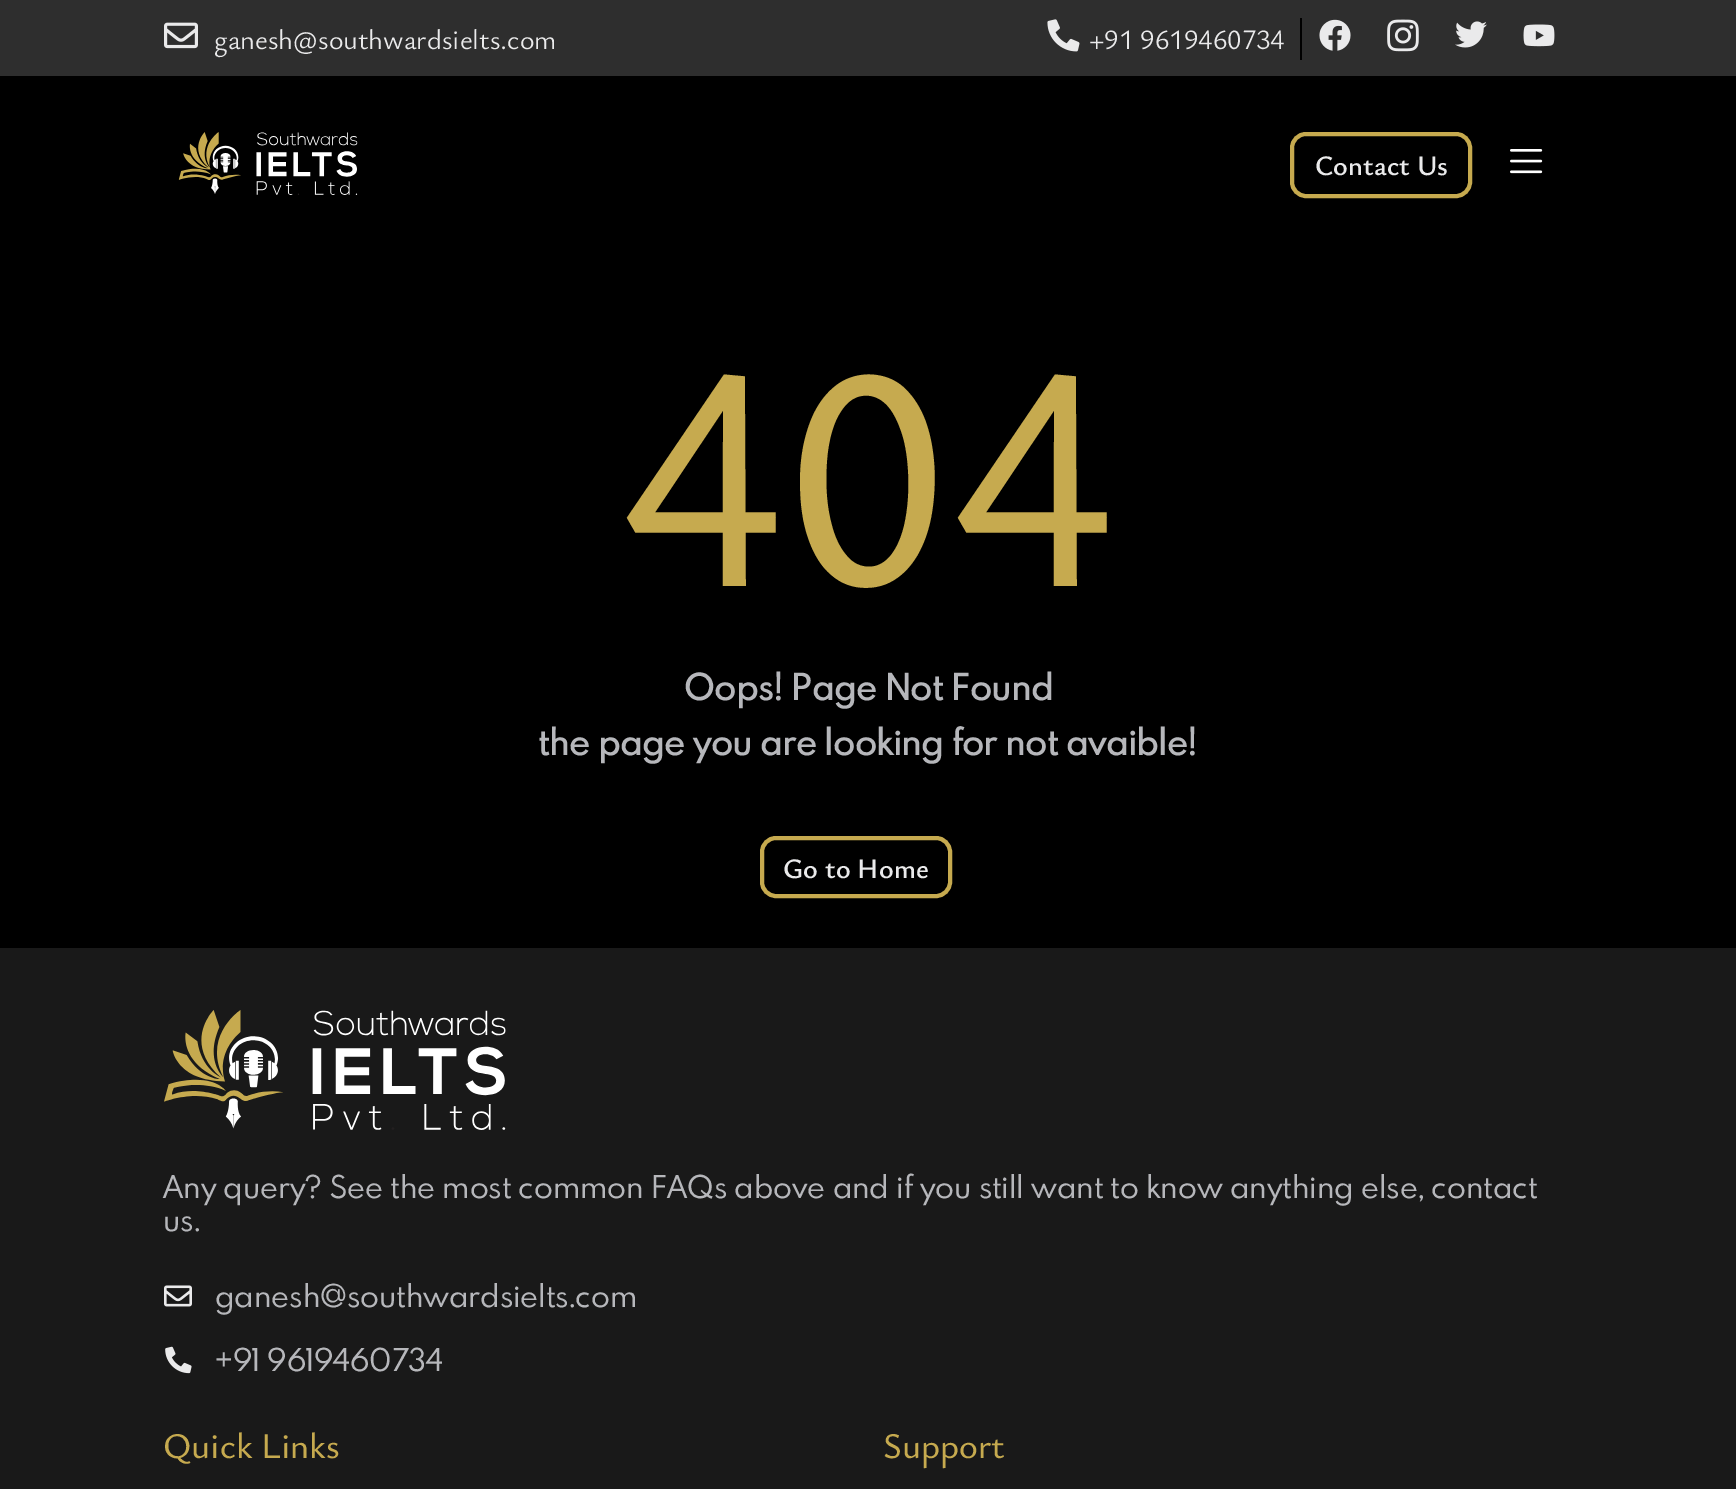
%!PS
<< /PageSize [1736 1489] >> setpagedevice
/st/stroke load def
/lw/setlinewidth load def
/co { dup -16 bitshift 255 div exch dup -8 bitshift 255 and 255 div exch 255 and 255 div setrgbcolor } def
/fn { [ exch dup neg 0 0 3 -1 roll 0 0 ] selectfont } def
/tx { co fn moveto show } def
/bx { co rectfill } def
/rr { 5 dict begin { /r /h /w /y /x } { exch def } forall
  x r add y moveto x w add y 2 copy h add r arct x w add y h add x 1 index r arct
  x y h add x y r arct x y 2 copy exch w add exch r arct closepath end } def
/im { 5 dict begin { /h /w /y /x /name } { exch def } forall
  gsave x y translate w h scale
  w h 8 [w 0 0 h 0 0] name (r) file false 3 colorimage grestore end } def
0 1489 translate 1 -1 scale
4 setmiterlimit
0 0 1736 1489 16#000000 bx
0 0 1736 76 16#2E2E2E bx
(media/1.raw) 164 22 34 27 im
1300 18 2 42 16#000000 bx
(media/2.raw) 1047 19 33 33 im
(media/3.raw) 1319 19 32 32 im
(media/4.raw) 1387 19 32 33 im
(media/5.raw) 1455 21 32 27 im
(media/6.raw) 1523 24 32 23 im
(media/7.raw) 178 132 180 63 im
16#C6AA4F co
4 lw
1292 134 178 62 14 rr st
(media/8.raw) 1510 149 33 25 im
762 838 188 58 14 rr st
0 948 1736 541 16#191919 bx
(media/9.raw) 164 1010 342 120 im
(media/10.raw) 164 1285 28 22 im
(media/11.raw) 165 1346 27 28 im
(ganesh@southwardsielts.com) 214 49 /YsabeauOffice-Regular 28 16#EAEAEB tx
(+91 9619460734) 1089 49 /YsabeauOffice-Regular 28 16#EAEAEB tx
(Contact Us) 1315 175 /YsabeauOffice-SemiBold 28 16#EAEAEB tx
(404) 620 586 /YsabeauOffice-Medium 320 16#C6AA4F tx
(Oops! Page Not Found) 684 700 /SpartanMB-Bold 32 16#B6B7BB tx
(the page you are looking for not avaible!) 538 755 /SpartanMB-Bold 32 16#B6B7BB tx
(Go to Home) 783 878 /YsabeauOffice-SemiBold 28 16#EAEAEB tx
(Any query? See the most common FAQs above and if you still want to know anything else, contact) 163 1198 /SpartanMB-Regular 28 16#B6B7BB tx
(us.) 163 1231 /SpartanMB-Regular 28 16#B6B7BB tx
(ganesh@southwardsielts.com) 215 1307 /SpartanMB-Regular 28 16#B6B7BB tx
(+91 9619460734) 215 1371 /SpartanMB-Regular 28 16#B6B7BB tx
(Quick Links) 163 1458 /YsabeauOffice-Medium 36 16#C6AA4F tx
(Support) 883 1458 /YsabeauOffice-Medium 36 16#C6AA4F tx
showpage
